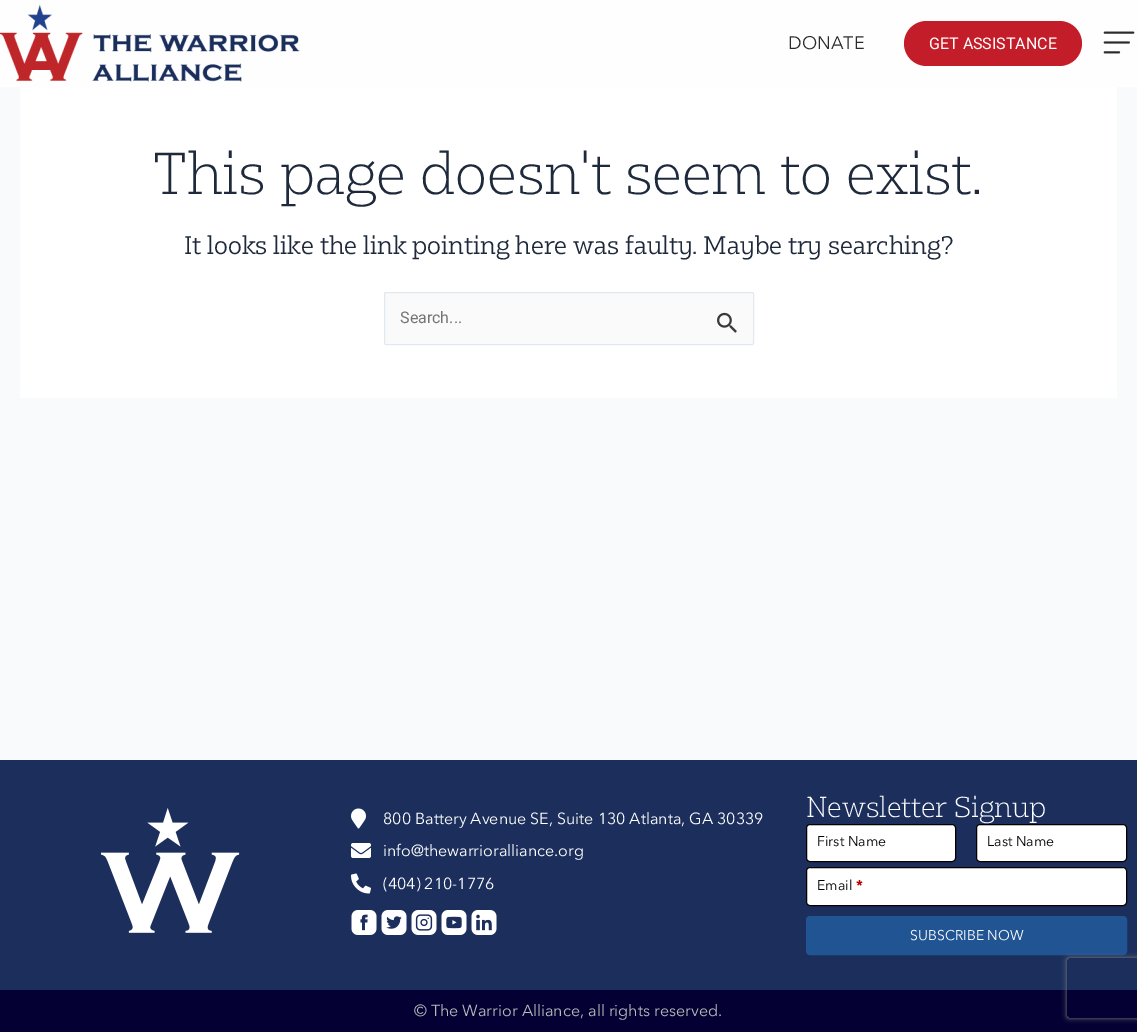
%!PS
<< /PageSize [1137 1032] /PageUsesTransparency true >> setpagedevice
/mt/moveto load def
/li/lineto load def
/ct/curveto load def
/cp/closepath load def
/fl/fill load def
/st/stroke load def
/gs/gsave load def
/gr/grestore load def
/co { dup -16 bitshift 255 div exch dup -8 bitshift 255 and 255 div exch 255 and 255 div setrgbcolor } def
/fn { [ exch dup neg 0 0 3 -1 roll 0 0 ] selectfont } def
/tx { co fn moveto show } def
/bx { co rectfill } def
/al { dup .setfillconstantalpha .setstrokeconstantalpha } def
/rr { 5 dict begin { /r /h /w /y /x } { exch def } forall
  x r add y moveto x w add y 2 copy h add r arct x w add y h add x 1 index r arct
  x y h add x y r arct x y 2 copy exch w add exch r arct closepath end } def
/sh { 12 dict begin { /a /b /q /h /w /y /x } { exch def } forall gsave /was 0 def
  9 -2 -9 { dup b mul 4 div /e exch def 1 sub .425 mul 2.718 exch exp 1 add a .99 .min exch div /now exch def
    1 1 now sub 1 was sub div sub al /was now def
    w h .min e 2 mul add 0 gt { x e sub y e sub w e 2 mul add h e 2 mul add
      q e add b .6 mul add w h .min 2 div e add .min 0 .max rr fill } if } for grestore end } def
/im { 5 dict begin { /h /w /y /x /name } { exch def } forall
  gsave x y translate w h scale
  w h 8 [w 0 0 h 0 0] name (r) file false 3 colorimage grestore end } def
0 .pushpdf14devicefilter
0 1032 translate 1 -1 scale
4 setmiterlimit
0 0 1137 1032 16#F9FAFB bx
0 0 1137 87 16#FEFEFE bx
(media/1.raw) 0 5 300 77 im
16#C31D29 co
904 21 178 45 22.5 rr fl
(media/2.raw) 1103 31 32 23 im
20 87 1097 311 16#FFFFFF bx
16#FAFAFA co
384.5 292.5 369 52 1.5 rr gs fl gr
16#E2E8F0 co
st
(media/3.raw) 717 312 20 21 im
0 760 1137 230 16#1C2E5C bx
(media/4.raw) 101 808 139 125 im
(media/5.raw) 351 808 15 21 im
(media/6.raw) 351 843 20 15 im
(media/7.raw) 351 873 20 21 im
(media/8.raw) 351 910 26 25 im
(media/9.raw) 381 910 26 25 im
(media/10.raw) 411 910 26 25 im
(media/11.raw) 441 910 26 25 im
(media/12.raw) 471 910 26 25 im
16#FFFFFF co
806.5 824.5 149 37 3.5 rr gs fl gr
16#000000 co
st
16#FFFFFF co
976.5 824.5 150 37 3.5 rr gs fl gr
16#000000 co
st
16#FFFFFF co
806.5 867.5 320 38 3.5 rr gs fl gr
16#000000 co
st
16#205493 co
806.5 916.5 320 38 3.5 rr gs fl gr
st
0 990 1137 42 16#040033 bx
gs
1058 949 mt 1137 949 li 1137 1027 li 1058 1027 li cp 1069 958 mt 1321 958 li 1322 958 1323 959 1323 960 ct 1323 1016 li 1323 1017 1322 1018 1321 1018 ct 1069 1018 li 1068 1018 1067 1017 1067 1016 ct 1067 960 li 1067 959 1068 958 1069 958 ct cp eoclip newpath
16#808080 co
1067 958 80 60 2 2.5 1 sh
gr
(DONATE) 788 49 /AvenirNext-Regular 18 16#2B2B2B tx
(GET ASSISTANCE) 929 49 /Roboto-Regular 16 16#FFFFFF tx
(This page doesn't seem to exist.) 153 194 /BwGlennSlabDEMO-Light 55.75 16#1E293B tx
(It looks like the link pointing here was faulty. Maybe try searching?) 184 254 /BwGlennSlabDEMO-Regular 24 16#1E293B tx
(Search...) 400 323 /Roboto-Regular 16 16#757575 tx
(800 Battery Avenue SE, Suite 130 Atlanta, GA 30339) 383 824 /AvenirNext-Regular 16 16#FFFFFF tx
(info@thewarrioralliance.org) 383 856 /AvenirNext-Regular 16 16#FFFFFF tx
(\(404\) 210-1776) 383 889 /AvenirNext-Regular 16 16#FFFFFF tx
(Newsletter Signup) 806 817 /BwGlennSlabDEMO-Light 27.25 16#FFFFFF tx
(First Name) 817 846 /AvenirNext-Regular 14 16#000000 tx
(Last Name) 987 846 /AvenirNext-Regular 14 16#000000 tx
(Email) 817 890 /AvenirNext-Regular 14 16#000000 tx
(*) 856 890 /AvenirNext-Bold 14 16#BB0000 tx
(SUBSCRIBE NOW) 910 940 /AvenirNext-Regular 14 16#FFFFFF tx
(© The Warrior Alliance, all rights reserved.) 414 1016 /AvenirNext-Regular 16 16#B9B9B9 tx
.poppdf14devicefilter showpage
